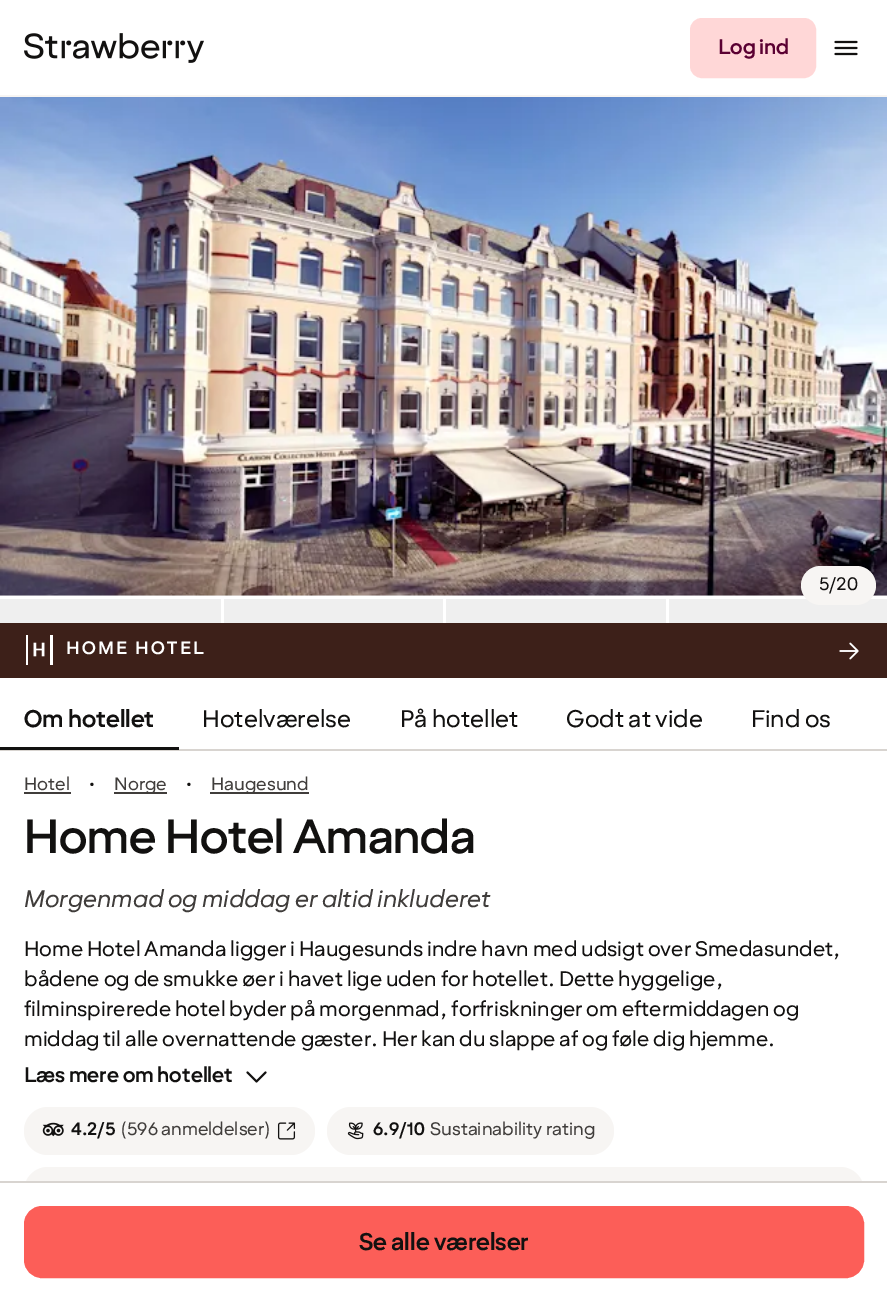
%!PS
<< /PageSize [887 1301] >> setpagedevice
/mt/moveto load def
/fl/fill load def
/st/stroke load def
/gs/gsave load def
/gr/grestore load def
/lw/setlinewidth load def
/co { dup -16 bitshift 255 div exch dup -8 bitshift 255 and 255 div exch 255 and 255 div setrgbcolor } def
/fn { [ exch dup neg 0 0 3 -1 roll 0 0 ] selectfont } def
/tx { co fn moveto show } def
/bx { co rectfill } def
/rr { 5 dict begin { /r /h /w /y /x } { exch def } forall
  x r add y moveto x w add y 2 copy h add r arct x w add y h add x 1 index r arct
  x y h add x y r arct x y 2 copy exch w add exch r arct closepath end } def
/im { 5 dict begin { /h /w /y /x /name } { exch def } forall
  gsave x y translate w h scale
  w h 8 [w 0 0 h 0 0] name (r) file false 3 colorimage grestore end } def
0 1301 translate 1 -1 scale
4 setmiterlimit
0 0 887 1301 16#FFFFFF bx
0 95 887 2 16#F7F5F3 bx
(media/1.raw) 24 33 180 30 im
16#FFD7D7 co
691.5 19.5 123 57 10.5 rr gs fl gr
3 lw
st
(media/2.raw) 834 40 24 16 im
0 595 887 1 16#EFEFEF bx
(media/3.raw) 0 97 887 499 im
669 599 218 24 16#EFEFEF bx
16#F7F5F3 co
801 566 75 39 19.5 rr fl
0 599 221 24 16#EFEFEF bx
224 599 219 24 16#EFEFEF bx
446 599 220 24 16#EFEFEF bx
0 623 887 55 16#3D2019 bx
(media/4.raw) 26 635 27 30 im
(media/5.raw) 839 642 20 18 im
0 749 887 2 16#D8D4D0 bx
0 747 179 3 16#121110 bx
24 792 47 2 16#403D3B bx
114 792 53 2 16#403D3B bx
210 792 99 2 16#403D3B bx
(media/6.raw) 246 1071 21 12 im
16#F7F5F3 co
24 1107 291 48 24 rr fl
(media/7.raw) 42 1122 22 15 im
(media/8.raw) 277 1122 19 18 im
327 1107 287 48 24 rr fl
(media/9.raw) 347 1122 17 18 im
24 1167 840 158 24 rr fl
24 1183 840 118 16#FFFFFF bx
0 1181 887 2 16#D8D4D0 bx
16#FC5E58 co
25.5 1207.5 837 69 16.5 rr gs fl gr
st
(Log ind) 718 54 /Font-Bold 21 16#5A0032 tx
(5/20) 819 590 /Font-Regular 18 16#121110 tx
/Font-Bold 18 fn
16#FFFFFF co
66 654 mt 2.25 0 (HOME HOTEL) ashow
(Om hotellet) 24 727 /Font-Bold 24 16#121110 tx
(Hotelværelse) 202 727 /Font-Regular 24 16#121110 tx
(På hotellet) 400 727 /Font-Regular 24 16#121110 tx
(Godt at vide) 566 727 /Font-Regular 24 16#121110 tx
(Find os) 751 727 /Font-Regular 24 16#121110 tx
(Hotel) 24 790 /Font-Regular 18 16#403D3B tx
(·) 88 793 /Font-Regular 24 16#121110 tx
(Norge) 114 790 /Font-Regular 18 16#403D3B tx
(·) 185 793 /Font-Regular 24 16#121110 tx
(Haugesund) 211 790 /Font-Regular 18 16#403D3B tx
(Home Hotel Amanda) 24 853 /Font-Medium 48 16#121110 tx
(Morgenmad og middag er altid inkluderet) 24 907 /Font-Italic 24 16#403D3B tx
(Home Hotel Amanda ligger i Haugesunds indre havn med udsigt over Smedasundet,) 24 956 /Font-Regular 21 16#121110 tx
(bådene og de smukke øer i havet lige uden for hotellet. Dette hyggelige,) 24 986 /Font-Regular 21 16#121110 tx
(filminspirerede hotel byder på morgenmad, forfriskninger om eftermiddagen og) 24 1016 /Font-Regular 21 16#121110 tx
(middag til alle overnattende gæster. Her kan du slappe af og føle dig hjemme.) 24 1046 /Font-Regular 21 16#121110 tx
(Læs mere om hotellet) 24 1082 /Font-Bold 21 16#121110 tx
(4.2/5) 71 1135 /Font-Bold 18 16#121110 tx
(\(596 anmeldelser\)) 121 1135 /Font-Regular 18 16#403D3B tx
(6.9/10) 373 1135 /Font-Bold 18 16#121110 tx
(Sustainability rating) 430 1135 /Font-Regular 18 16#403D3B tx
(Se alle værelser) 359 1250 /Font-Bold 24 16#121110 tx
showpage
